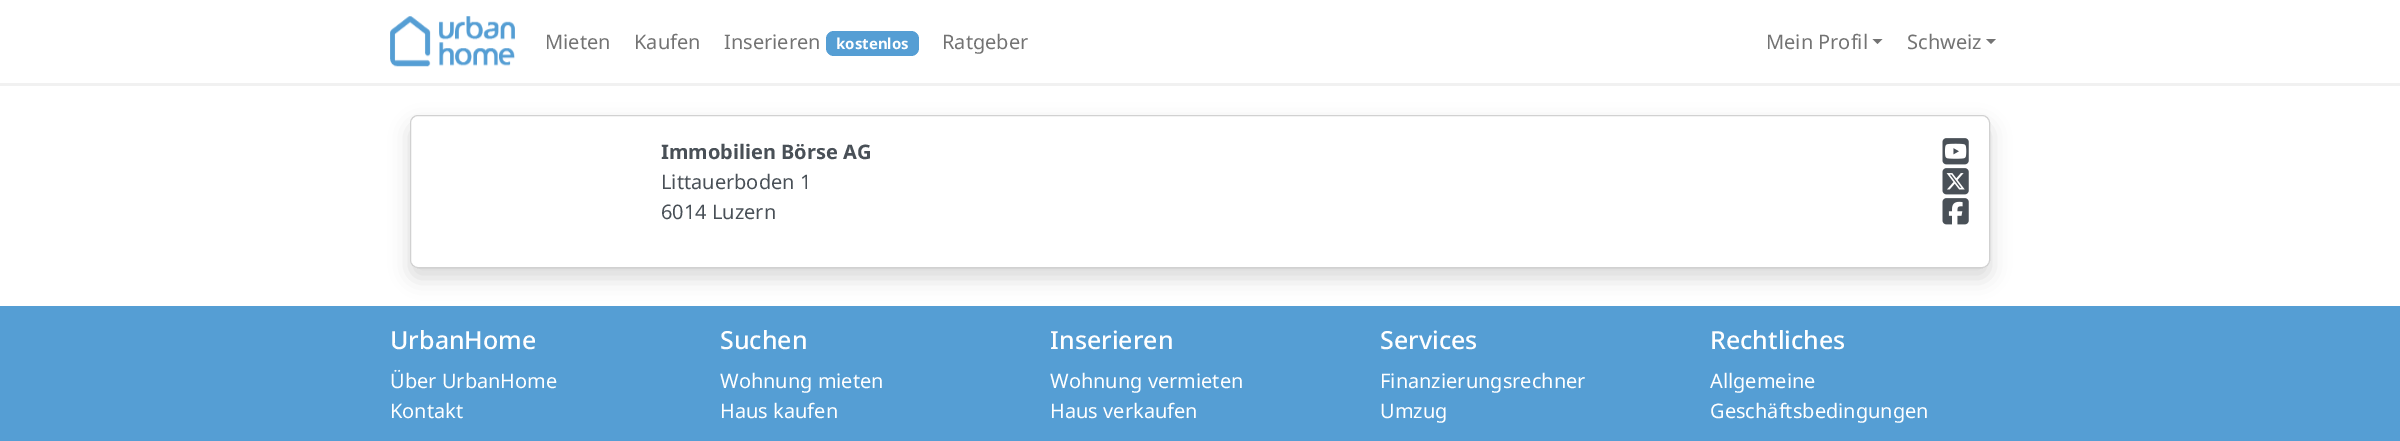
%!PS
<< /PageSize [2400 441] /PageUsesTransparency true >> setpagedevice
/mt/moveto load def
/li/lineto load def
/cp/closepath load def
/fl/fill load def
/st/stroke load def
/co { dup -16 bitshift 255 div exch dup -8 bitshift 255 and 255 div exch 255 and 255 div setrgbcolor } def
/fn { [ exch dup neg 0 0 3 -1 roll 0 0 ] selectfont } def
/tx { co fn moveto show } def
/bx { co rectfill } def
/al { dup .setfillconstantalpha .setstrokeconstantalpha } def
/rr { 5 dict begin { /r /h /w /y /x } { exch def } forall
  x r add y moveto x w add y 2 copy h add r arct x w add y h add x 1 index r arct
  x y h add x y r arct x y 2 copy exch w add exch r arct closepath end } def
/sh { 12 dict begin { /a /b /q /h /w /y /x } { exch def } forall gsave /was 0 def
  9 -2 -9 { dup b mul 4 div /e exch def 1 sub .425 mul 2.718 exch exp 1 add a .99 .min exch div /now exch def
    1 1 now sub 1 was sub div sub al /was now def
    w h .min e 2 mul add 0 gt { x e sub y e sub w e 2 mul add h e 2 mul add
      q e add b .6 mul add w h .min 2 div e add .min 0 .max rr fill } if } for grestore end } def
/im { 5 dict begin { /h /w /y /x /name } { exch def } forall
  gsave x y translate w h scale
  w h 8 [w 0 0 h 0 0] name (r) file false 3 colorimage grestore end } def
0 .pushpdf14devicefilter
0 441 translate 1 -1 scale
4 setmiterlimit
0 0 2400 441 16#FFFFFF bx
0 83 2400 3 16#F1F1F1 bx
(media/1.raw) 390 16 125 51 im
16#559ED4 co
826 31 93 25 8 rr fl
16#737373 co
1872.5 39 mt 1882.5 39 li 1877.5 44 li cp fl
1986 39 mt 1996 39 li 1991 44 li cp fl
0 306 2400 135 16#559ED4 bx
16#000000 co
410 125 1580 153 8 10 .15 sh
16#FFFFFF co
410 115 1580 153 8 rr fl
0.18 al
16#000000 co
410.5 115.5 1579 152 7.5 rr st
1 al
(media/2.raw) 1942 138 27 27 im
(media/3.raw) 1942 168 27 27 im
(media/4.raw) 1942 198 27 27 im
(Mieten) 545 49 /NotoSans-Regular 20 16#737373 tx
(Kaufen) 634 49 /NotoSans-Regular 20 16#737373 tx
(Inserieren) 724 49 /NotoSans-Regular 20 16#737373 tx
(kostenlos) 836 49 /NotoSans-Bold 15 16#FFFFFF tx
(Ratgeber) 942 49 /NotoSans-Regular 20 16#737373 tx
(Mein Profil) 1766 49 /NotoSans-Regular 20 16#737373 tx
(Schweiz) 1907 49 /NotoSans-Regular 20 16#737373 tx
(Immobilien Börse AG) 661 159 /NotoSans-Bold 20 16#495057 tx
(Littauerboden 1) 661 189 /NotoSans-Regular 20 16#495057 tx
(6014 Luzern) 661 219 /NotoSans-Regular 20 16#495057 tx
(UrbanHome) 390 349 /NotoSans-Medium 25 16#FFFFFF tx
(Über UrbanHome) 390 388 /NotoSans-Regular 20 16#FFFFFF tx
(Kontakt) 390 418 /NotoSans-Regular 20 16#FFFFFF tx
(Suchen) 720 349 /NotoSans-Medium 25 16#FFFFFF tx
(Wohnung mieten) 720 388 /NotoSans-Regular 20 16#FFFFFF tx
(Haus kaufen) 720 418 /NotoSans-Regular 20 16#FFFFFF tx
(Inserieren) 1050 349 /NotoSans-Medium 25 16#FFFFFF tx
(Wohnung vermieten) 1050 388 /NotoSans-Regular 20 16#FFFFFF tx
(Haus verkaufen) 1050 418 /NotoSans-Regular 20 16#FFFFFF tx
(Services) 1380 349 /NotoSans-Medium 25 16#FFFFFF tx
(Finanzierungsrechner) 1380 388 /NotoSans-Regular 20 16#FFFFFF tx
(Umzug) 1380 418 /NotoSans-Regular 20 16#FFFFFF tx
(Rechtliches) 1710 349 /NotoSans-Medium 25 16#FFFFFF tx
(Allgemeine) 1710 388 /NotoSans-Regular 20 16#FFFFFF tx
(Geschäftsbedingungen) 1710 418 /NotoSans-Regular 20 16#FFFFFF tx
.poppdf14devicefilter showpage
